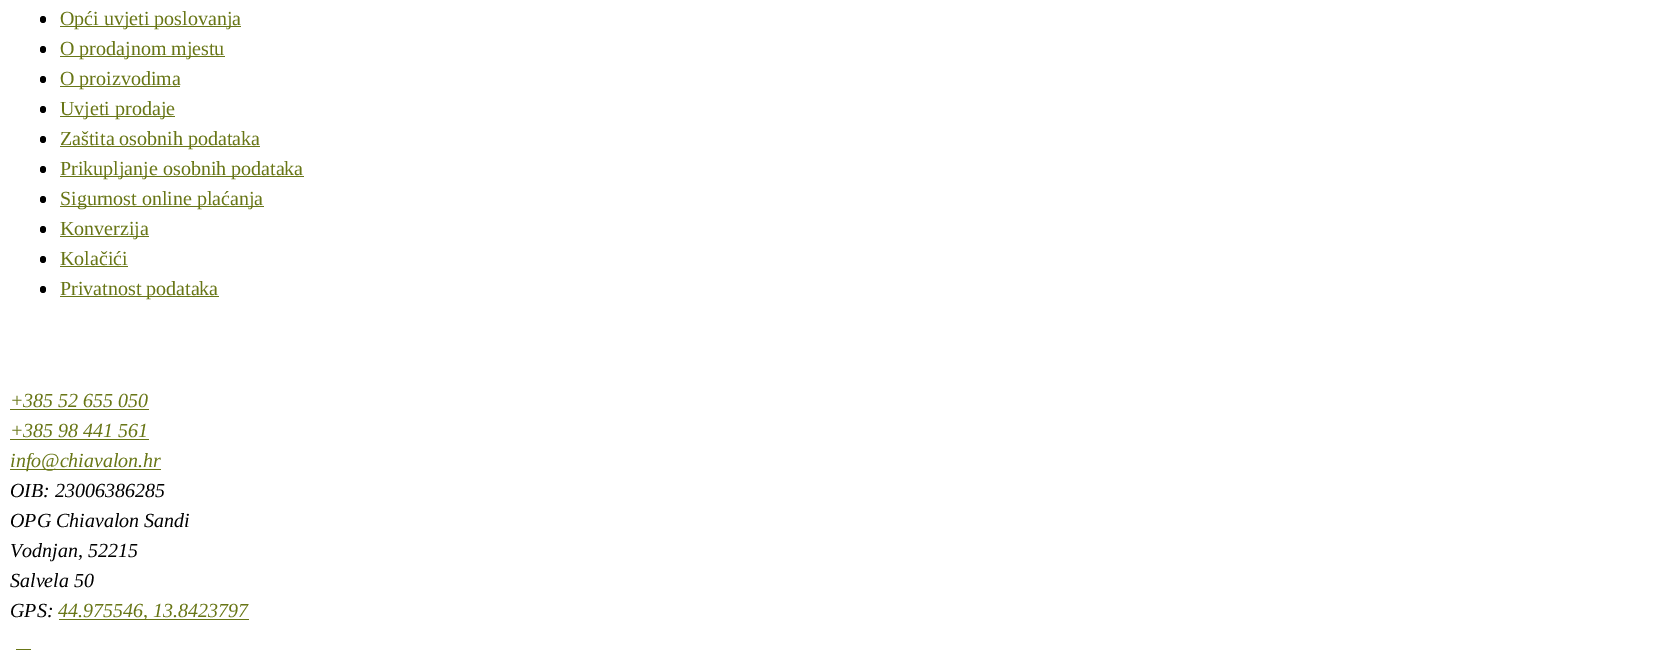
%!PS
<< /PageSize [1653 666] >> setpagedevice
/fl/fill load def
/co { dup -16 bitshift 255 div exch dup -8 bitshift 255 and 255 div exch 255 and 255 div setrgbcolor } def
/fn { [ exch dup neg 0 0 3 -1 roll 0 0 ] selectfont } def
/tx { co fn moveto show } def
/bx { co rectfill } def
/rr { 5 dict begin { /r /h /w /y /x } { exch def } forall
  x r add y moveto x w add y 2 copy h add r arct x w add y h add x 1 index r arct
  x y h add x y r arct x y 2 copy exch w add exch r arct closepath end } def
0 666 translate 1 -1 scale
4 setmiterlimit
0 0 1653 666 16#FFFFFF bx
16#000000 co
40 16 6 7 3 rr fl
60 26 181 1 16#687616 bx
16#000000 co
40 46 6 7 3 rr fl
60 56 165 1 16#687616 bx
16#000000 co
40 76 6 7 3 rr fl
60 86 120 1 16#687616 bx
16#000000 co
40 106 6 7 3 rr fl
60 116 115 1 16#687616 bx
16#000000 co
40 136 6 7 3 rr fl
60 146 200 1 16#687616 bx
16#000000 co
40 166 6 7 3 rr fl
60 176 244 1 16#687616 bx
16#000000 co
40 196 6 7 3 rr fl
60 206 204 1 16#687616 bx
16#000000 co
40 226 6 7 3 rr fl
60 236 89 1 16#687616 bx
16#000000 co
40 256 6 7 3 rr fl
60 266 68 1 16#687616 bx
16#000000 co
40 286 6 7 3 rr fl
60 296 159 1 16#687616 bx
10 409 139 1 16#687616 bx
10 439 139 1 16#687616 bx
10 469 151 1 16#687616 bx
59 619 190 1 16#687616 bx
16 649 15 1 16#687616 bx
(Opći uvjeti poslovanja) 60 25 /LiberationSerif-Regular 20 16#687616 tx
(O prodajnom mjestu) 60 55 /LiberationSerif-Regular 20 16#687616 tx
(O proizvodima) 60 85 /LiberationSerif-Regular 20 16#687616 tx
(Uvjeti prodaje) 60 115 /LiberationSerif-Regular 20 16#687616 tx
(Zaštita osobnih podataka) 60 145 /LiberationSerif-Regular 20 16#687616 tx
(Prikupljanje osobnih podataka) 60 175 /LiberationSerif-Regular 20 16#687616 tx
(Sigurnost online plaćanja) 60 205 /LiberationSerif-Regular 20 16#687616 tx
(Konverzija) 60 235 /LiberationSerif-Regular 20 16#687616 tx
(Kolačići) 60 265 /LiberationSerif-Regular 20 16#687616 tx
(Privatnost podataka) 60 295 /LiberationSerif-Regular 20 16#687616 tx
(+385 52 655 050) 10 407 /LiberationSerif-Italic 20 16#687616 tx
(+385 98 441 561) 10 437 /LiberationSerif-Italic 20 16#687616 tx
(info@chiavalon.hr) 10 467 /LiberationSerif-Italic 20 16#687616 tx
(OIB: 23006386285) 10 497 /LiberationSerif-Italic 20 16#000000 tx
(OPG Chiavalon Sandi) 10 527 /LiberationSerif-Italic 20 16#000000 tx
(Vodnjan, 52215) 10 557 /LiberationSerif-Italic 20 16#000000 tx
(Salvela 50) 10 587 /LiberationSerif-Italic 20 16#000000 tx
(GPS:) 10 617 /LiberationSerif-Italic 20 16#000000 tx
(44.975546, 13.8423797) 58 617 /LiberationSerif-Italic 20 16#687616 tx
showpage
